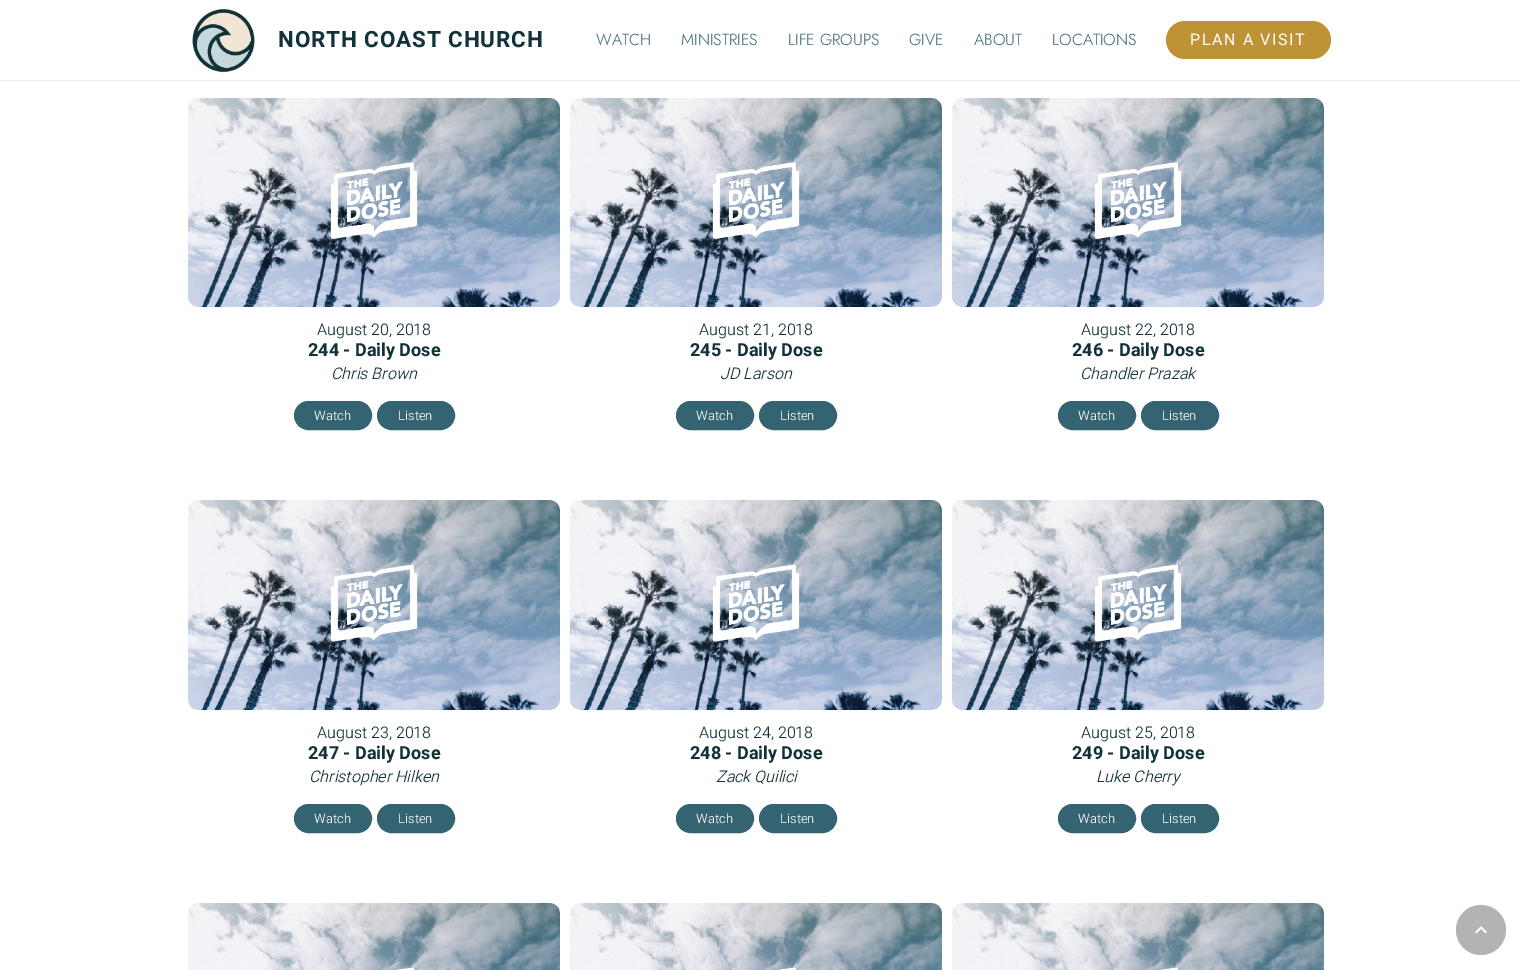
%!PS
<< /PageSize [1521 970] >> setpagedevice
/mt/moveto load def
/fl/fill load def
/st/stroke load def
/gs/gsave load def
/gr/grestore load def
/co { dup -16 bitshift 255 div exch dup -8 bitshift 255 and 255 div exch 255 and 255 div setrgbcolor } def
/fn { [ exch dup neg 0 0 3 -1 roll 0 0 ] selectfont } def
/tx { co fn moveto show } def
/bx { co rectfill } def
/ci { newpath 0 360 arc closepath } def
/rr { 5 dict begin { /r /h /w /y /x } { exch def } forall
  x r add y moveto x w add y 2 copy h add r arct x w add y h add x 1 index r arct
  x y h add x y r arct x y 2 copy exch w add exch r arct closepath end } def
/im { 5 dict begin { /h /w /y /x /name } { exch def } forall
  gsave x y translate w h scale
  w h 8 [w 0 0 h 0 0] name (r) file false 3 colorimage grestore end } def
0 970 translate 1 -1 scale
4 setmiterlimit
0 0 1521 970 16#FFFFFF bx
0 80 1521 1 16#EBEBEB bx
(media/1.raw) 192 8 63 65 im
16#BD9335 co
1166 21 165 38 19 rr fl
(media/2.raw) 188 98 372 209 im
16#346372 co
294.5 401.5 77 28 14 rr gs fl gr
st
377.5 401.5 77 28 14 rr gs fl gr
st
(media/3.raw) 570 98 372 209 im
676.5 401.5 77 28 14 rr gs fl gr
st
759.5 401.5 77 28 14 rr gs fl gr
st
(media/4.raw) 952 98 372 209 im
1058.5 401.5 77 28 14 rr gs fl gr
st
1141.5 401.5 77 28 14 rr gs fl gr
st
(media/5.raw) 188 500 372 210 im
294.5 804.5 77 28 14 rr gs fl gr
st
377.5 804.5 77 28 14 rr gs fl gr
st
(media/6.raw) 570 500 372 210 im
676.5 804.5 77 28 14 rr gs fl gr
st
759.5 804.5 77 28 14 rr gs fl gr
st
(media/7.raw) 952 500 372 210 im
1058.5 804.5 77 28 14 rr gs fl gr
st
1141.5 804.5 77 28 14 rr gs fl gr
st
(media/8.raw) 188 903 372 67 im
(media/9.raw) 570 903 372 67 im
(media/10.raw) 952 903 372 67 im
16#B3B3B3 co
1481 930 25 ci fl
(media/11.raw) 1475 926 12 8 im
/Heebo-Bold 22.4 fn
16#113238 co
278 47 mt .9 0 (NORTH COAST CHURCH) ashow
(WATCH) 596 45 /Jost-Light 16 16#346271 tx
(MINISTRIES) 681 45 /Jost-Light 16 16#346271 tx
(LIFE GROUPS) 788 45 /Jost-Light 16 16#346271 tx
(GIVE) 909 45 /Jost-Light 16 16#346271 tx
(ABOUT) 974 45 /Jost-Light 16 16#346271 tx
(LOCATIONS) 1052 45 /Jost-Light 16 16#346271 tx
/Heebo-Regular 16 fn
16#FFFFFF co
1190 45 mt 1.6 0 (PLAN A VISIT) ashow
(August 20, 2018) 317 335 /Heebo-Light 16 16#113238 tx
(244 - Daily Dose) 308 356 /Heebo-Bold 18 16#113238 tx
(Chris Brown) 331 379 /Heebo-LightItalic 16 16#113238 tx
(Watch) 314 420 /Heebo-Light 13 16#FFFFFF tx
(Listen) 398 420 /Heebo-Light 13 16#FFFFFF tx
(August 21, 2018) 699 335 /Heebo-Light 16 16#113238 tx
(245 - Daily Dose) 690 356 /Heebo-Bold 18 16#113238 tx
(JD Larson) 720 379 /Heebo-LightItalic 16 16#113238 tx
(Watch) 696 420 /Heebo-Light 13 16#FFFFFF tx
(Listen) 780 420 /Heebo-Light 13 16#FFFFFF tx
(August 22, 2018) 1081 335 /Heebo-Light 16 16#113238 tx
(246 - Daily Dose) 1072 356 /Heebo-Bold 18 16#113238 tx
(Chandler Prazak) 1080 379 /Heebo-LightItalic 16 16#113238 tx
(Watch) 1078 420 /Heebo-Light 13 16#FFFFFF tx
(Listen) 1162 420 /Heebo-Light 13 16#FFFFFF tx
(August 23, 2018) 317 738 /Heebo-Light 16 16#113238 tx
(247 - Daily Dose) 308 759 /Heebo-Bold 18 16#113238 tx
(Christopher Hilken) 309 782 /Heebo-LightItalic 16 16#113238 tx
(Watch) 314 823 /Heebo-Light 13 16#FFFFFF tx
(Listen) 398 823 /Heebo-Light 13 16#FFFFFF tx
(August 24, 2018) 699 738 /Heebo-Light 16 16#113238 tx
(248 - Daily Dose) 690 759 /Heebo-Bold 18 16#113238 tx
(Zack Quilici) 716 782 /Heebo-LightItalic 16 16#113238 tx
(Watch) 696 823 /Heebo-Light 13 16#FFFFFF tx
(Listen) 780 823 /Heebo-Light 13 16#FFFFFF tx
(August 25, 2018) 1081 738 /Heebo-Light 16 16#113238 tx
(249 - Daily Dose) 1072 759 /Heebo-Bold 18 16#113238 tx
(Luke Cherry) 1096 782 /Heebo-LightItalic 16 16#113238 tx
(Watch) 1078 823 /Heebo-Light 13 16#FFFFFF tx
(Listen) 1162 823 /Heebo-Light 13 16#FFFFFF tx
showpage
